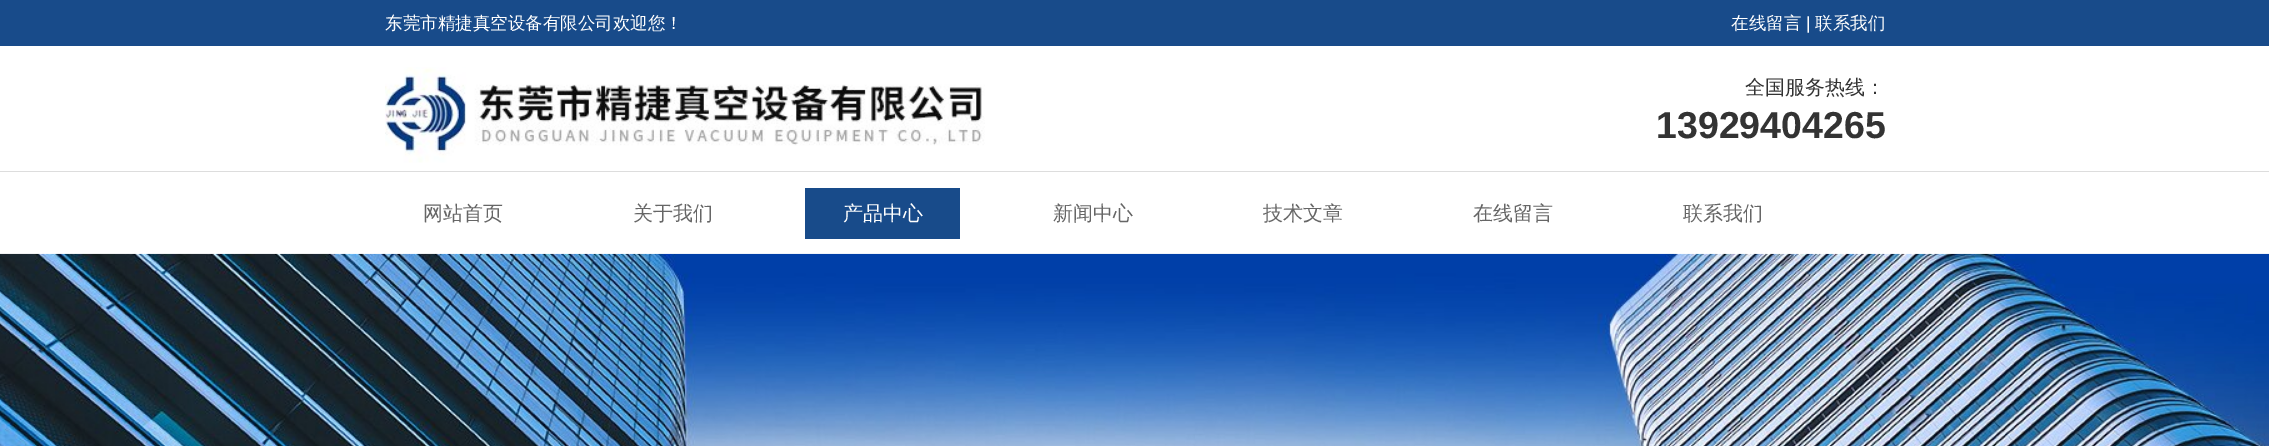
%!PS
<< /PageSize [2269 446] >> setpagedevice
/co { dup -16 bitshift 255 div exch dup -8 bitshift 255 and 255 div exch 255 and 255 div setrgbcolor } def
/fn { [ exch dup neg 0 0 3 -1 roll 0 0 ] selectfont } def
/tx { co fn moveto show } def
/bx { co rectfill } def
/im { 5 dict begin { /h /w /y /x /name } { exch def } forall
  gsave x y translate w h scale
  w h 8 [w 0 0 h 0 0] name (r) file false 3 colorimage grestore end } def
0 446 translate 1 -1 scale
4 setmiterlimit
0 0 2269 446 16#FFFFFF bx
0 0 2269 46 16#184B8A bx
(media/1.raw) 385 67 600 96 im
0 171 2269 1 16#DDDDDD bx
805 188 155 51 16#184B8A bx
(media/2.raw) 0 253 2269 193 im
(东莞市精捷真空设备有限公司欢迎您！) 385 29 /WenQuanYiZenHei-Medium 17.5 16#FFFFFF tx
(在线留言) 1731 29 /WenQuanYiZenHei-Medium 17.5 16#FFFFFF tx
(|) 1806 29 /LiberationSans-Regular 17.5 16#FFFFFF tx
(联系我们) 1815 29 /WenQuanYiZenHei-Medium 17.5 16#FFFFFF tx
(全国服务热线：) 1745 94 /WenQuanYiZenHei-Medium 20 16#333333 tx
(13929404265) 1656 138 /LiberationSans-Bold 37.5 16#333333 tx
(网站首页) 423 220 /WenQuanYiZenHei-Medium 20 16#666666 tx
(关于我们) 633 220 /WenQuanYiZenHei-Medium 20 16#666666 tx
(产品中心) 843 220 /WenQuanYiZenHei-Medium 20 16#FFFFFF tx
(新闻中心) 1053 220 /WenQuanYiZenHei-Medium 20 16#666666 tx
(技术文章) 1263 220 /WenQuanYiZenHei-Medium 20 16#666666 tx
(在线留言) 1473 220 /WenQuanYiZenHei-Medium 20 16#666666 tx
(联系我们) 1683 220 /WenQuanYiZenHei-Medium 20 16#666666 tx
showpage
